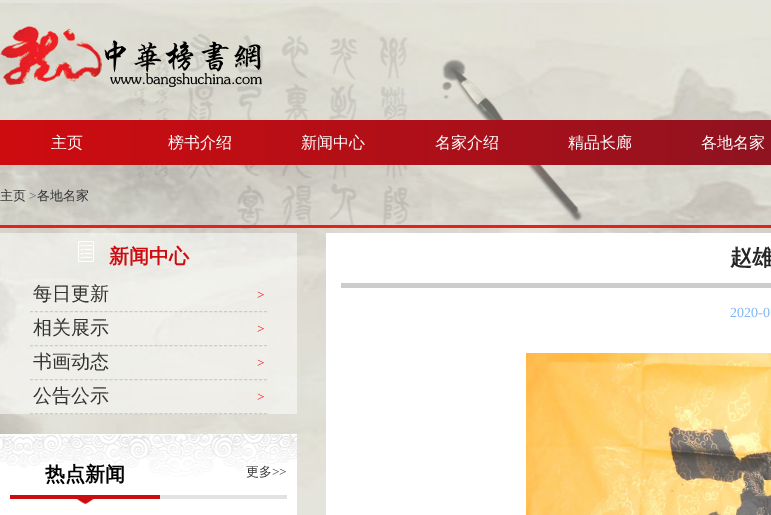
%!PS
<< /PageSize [771 515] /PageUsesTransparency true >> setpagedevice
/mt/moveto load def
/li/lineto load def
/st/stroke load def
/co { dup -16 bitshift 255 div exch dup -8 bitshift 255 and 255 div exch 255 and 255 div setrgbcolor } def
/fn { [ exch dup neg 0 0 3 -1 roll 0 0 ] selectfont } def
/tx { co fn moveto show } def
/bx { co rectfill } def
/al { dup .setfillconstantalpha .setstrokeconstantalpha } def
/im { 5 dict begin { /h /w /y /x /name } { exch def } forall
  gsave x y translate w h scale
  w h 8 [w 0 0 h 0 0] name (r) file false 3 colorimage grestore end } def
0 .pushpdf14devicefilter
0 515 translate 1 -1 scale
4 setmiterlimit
0 0 771 515 16#E4E4DC bx
(media/1.raw) 0 3 771 512 im
(media/2.raw) 0 26 262 61 im
(media/3.raw) 0 120 771 45 im
0 225 771 3 16#E7201D bx
0.51 al
0 233 297 45 16#FFFFFF bx
1 al
(media/4.raw) 78 241 16 21 im
0.51 al
0 278 297 136 16#FFFFFF bx
1 al
16#CCCCCC co
[3 1.98] 0 setdash
30 311.5 mt 267 311.5 li st
30 345.5 mt 267 345.5 li st
30 379.5 mt 267 379.5 li st
30 413.5 mt 267 413.5 li st
0 434 297 81 16#FFFFFF bx
(media/5.raw) 0 434 297 43 im
(media/6.raw) 10 495 150 9 im
160 495 127 4 16#E2E2E2 bx
326 233 445 282 16#FFFFFF bx
341 283 430 5 16#CCCCCC bx
(media/7.raw) 526 353 245 162 im
(主页) 51 148 /WenQuanYiZenHei-Medium 16 16#FFFFFF tx
(榜书介绍) 168 148 /WenQuanYiZenHei-Medium 16 16#FFFFFF tx
(新闻中心) 301 148 /WenQuanYiZenHei-Medium 16 16#FFFFFF tx
(名家介绍) 435 148 /WenQuanYiZenHei-Medium 16 16#FFFFFF tx
(精品长廊) 568 148 /WenQuanYiZenHei-Medium 16 16#FFFFFF tx
(各地名家) 701 148 /WenQuanYiZenHei-Medium 16 16#FFFFFF tx
(主页) 0 200 /WenQuanYiZenHei-Medium 13 16#333333 tx
(>) 29 200 /LiberationSerif-Regular 13 16#666666 tx
(各地名家) 37 200 /WenQuanYiZenHei-Medium 13 16#333333 tx
(新闻中心) 109 263 /WenQuanYiZenHei-Bold 20 16#CD0C10 tx
(每日更新) 33 300 /WenQuanYiZenHei-Medium 19 16#333333 tx
(>) 257 299 /LiberationSerif-Regular 13 16#FF0000 tx
(相关展示) 33 334 /WenQuanYiZenHei-Medium 19 16#333333 tx
(>) 257 333 /LiberationSerif-Regular 13 16#FF0000 tx
(书画动态) 33 368 /WenQuanYiZenHei-Medium 19 16#333333 tx
(>) 257 367 /LiberationSerif-Regular 13 16#FF0000 tx
(公告公示) 33 402 /WenQuanYiZenHei-Medium 19 16#333333 tx
(>) 257 401 /LiberationSerif-Regular 13 16#FF0000 tx
(热点新闻) 45 481 /WenQuanYiZenHei-Bold 20 16#000000 tx
(更多) 246 476 /WenQuanYiZenHei-Medium 13 16#333333 tx
(>>) 272 476 /LiberationSerif-Regular 13 16#333333 tx
(赵雄) 730 265 /WenQuanYiZenHei-Bold 22 16#252525 tx
(2020-0) 730 317 /LiberationSerif-Regular 14 16#7DB7F8 tx
.poppdf14devicefilter showpage
